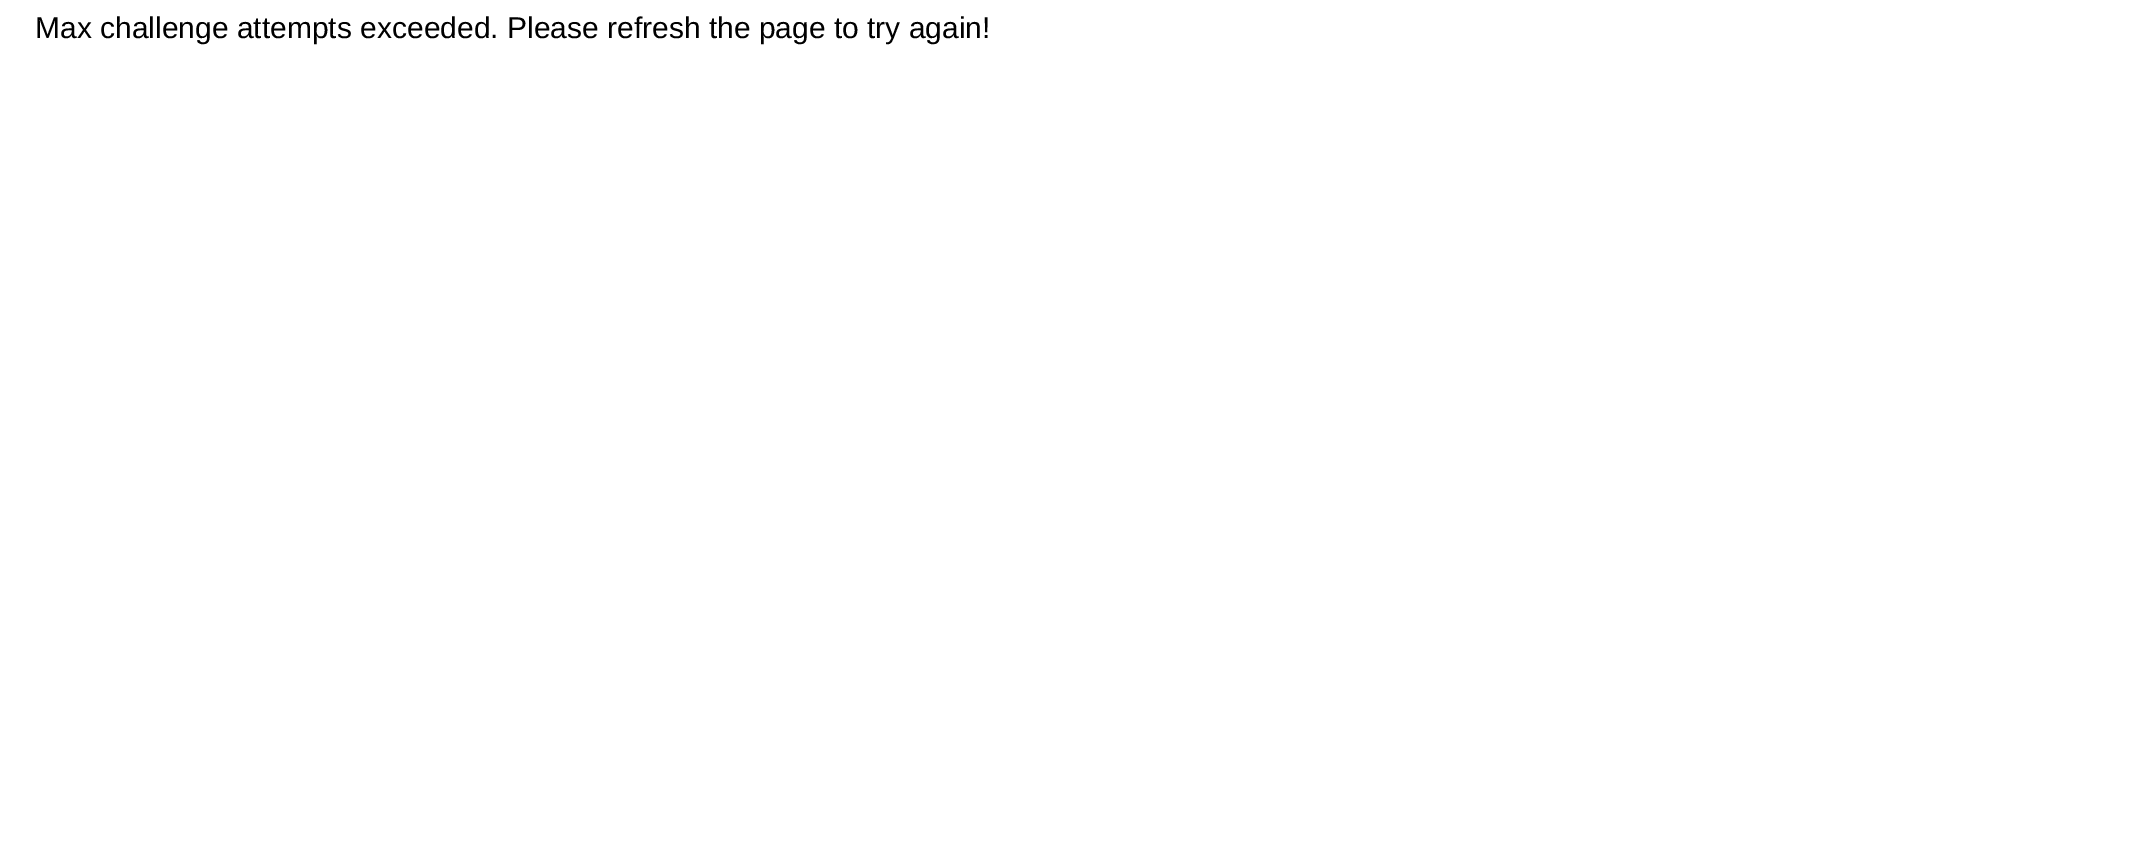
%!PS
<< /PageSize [2156 858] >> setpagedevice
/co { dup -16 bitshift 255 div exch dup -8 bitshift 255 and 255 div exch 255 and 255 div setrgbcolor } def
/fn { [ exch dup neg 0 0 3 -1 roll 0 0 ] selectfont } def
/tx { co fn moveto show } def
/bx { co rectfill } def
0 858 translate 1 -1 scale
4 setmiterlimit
0 0 2156 858 16#FFFFFF bx
(Max challenge attempts exceeded. Please refresh the page to try again!) 35 38 /LiberationSans-Regular 30 16#000000 tx
showpage
